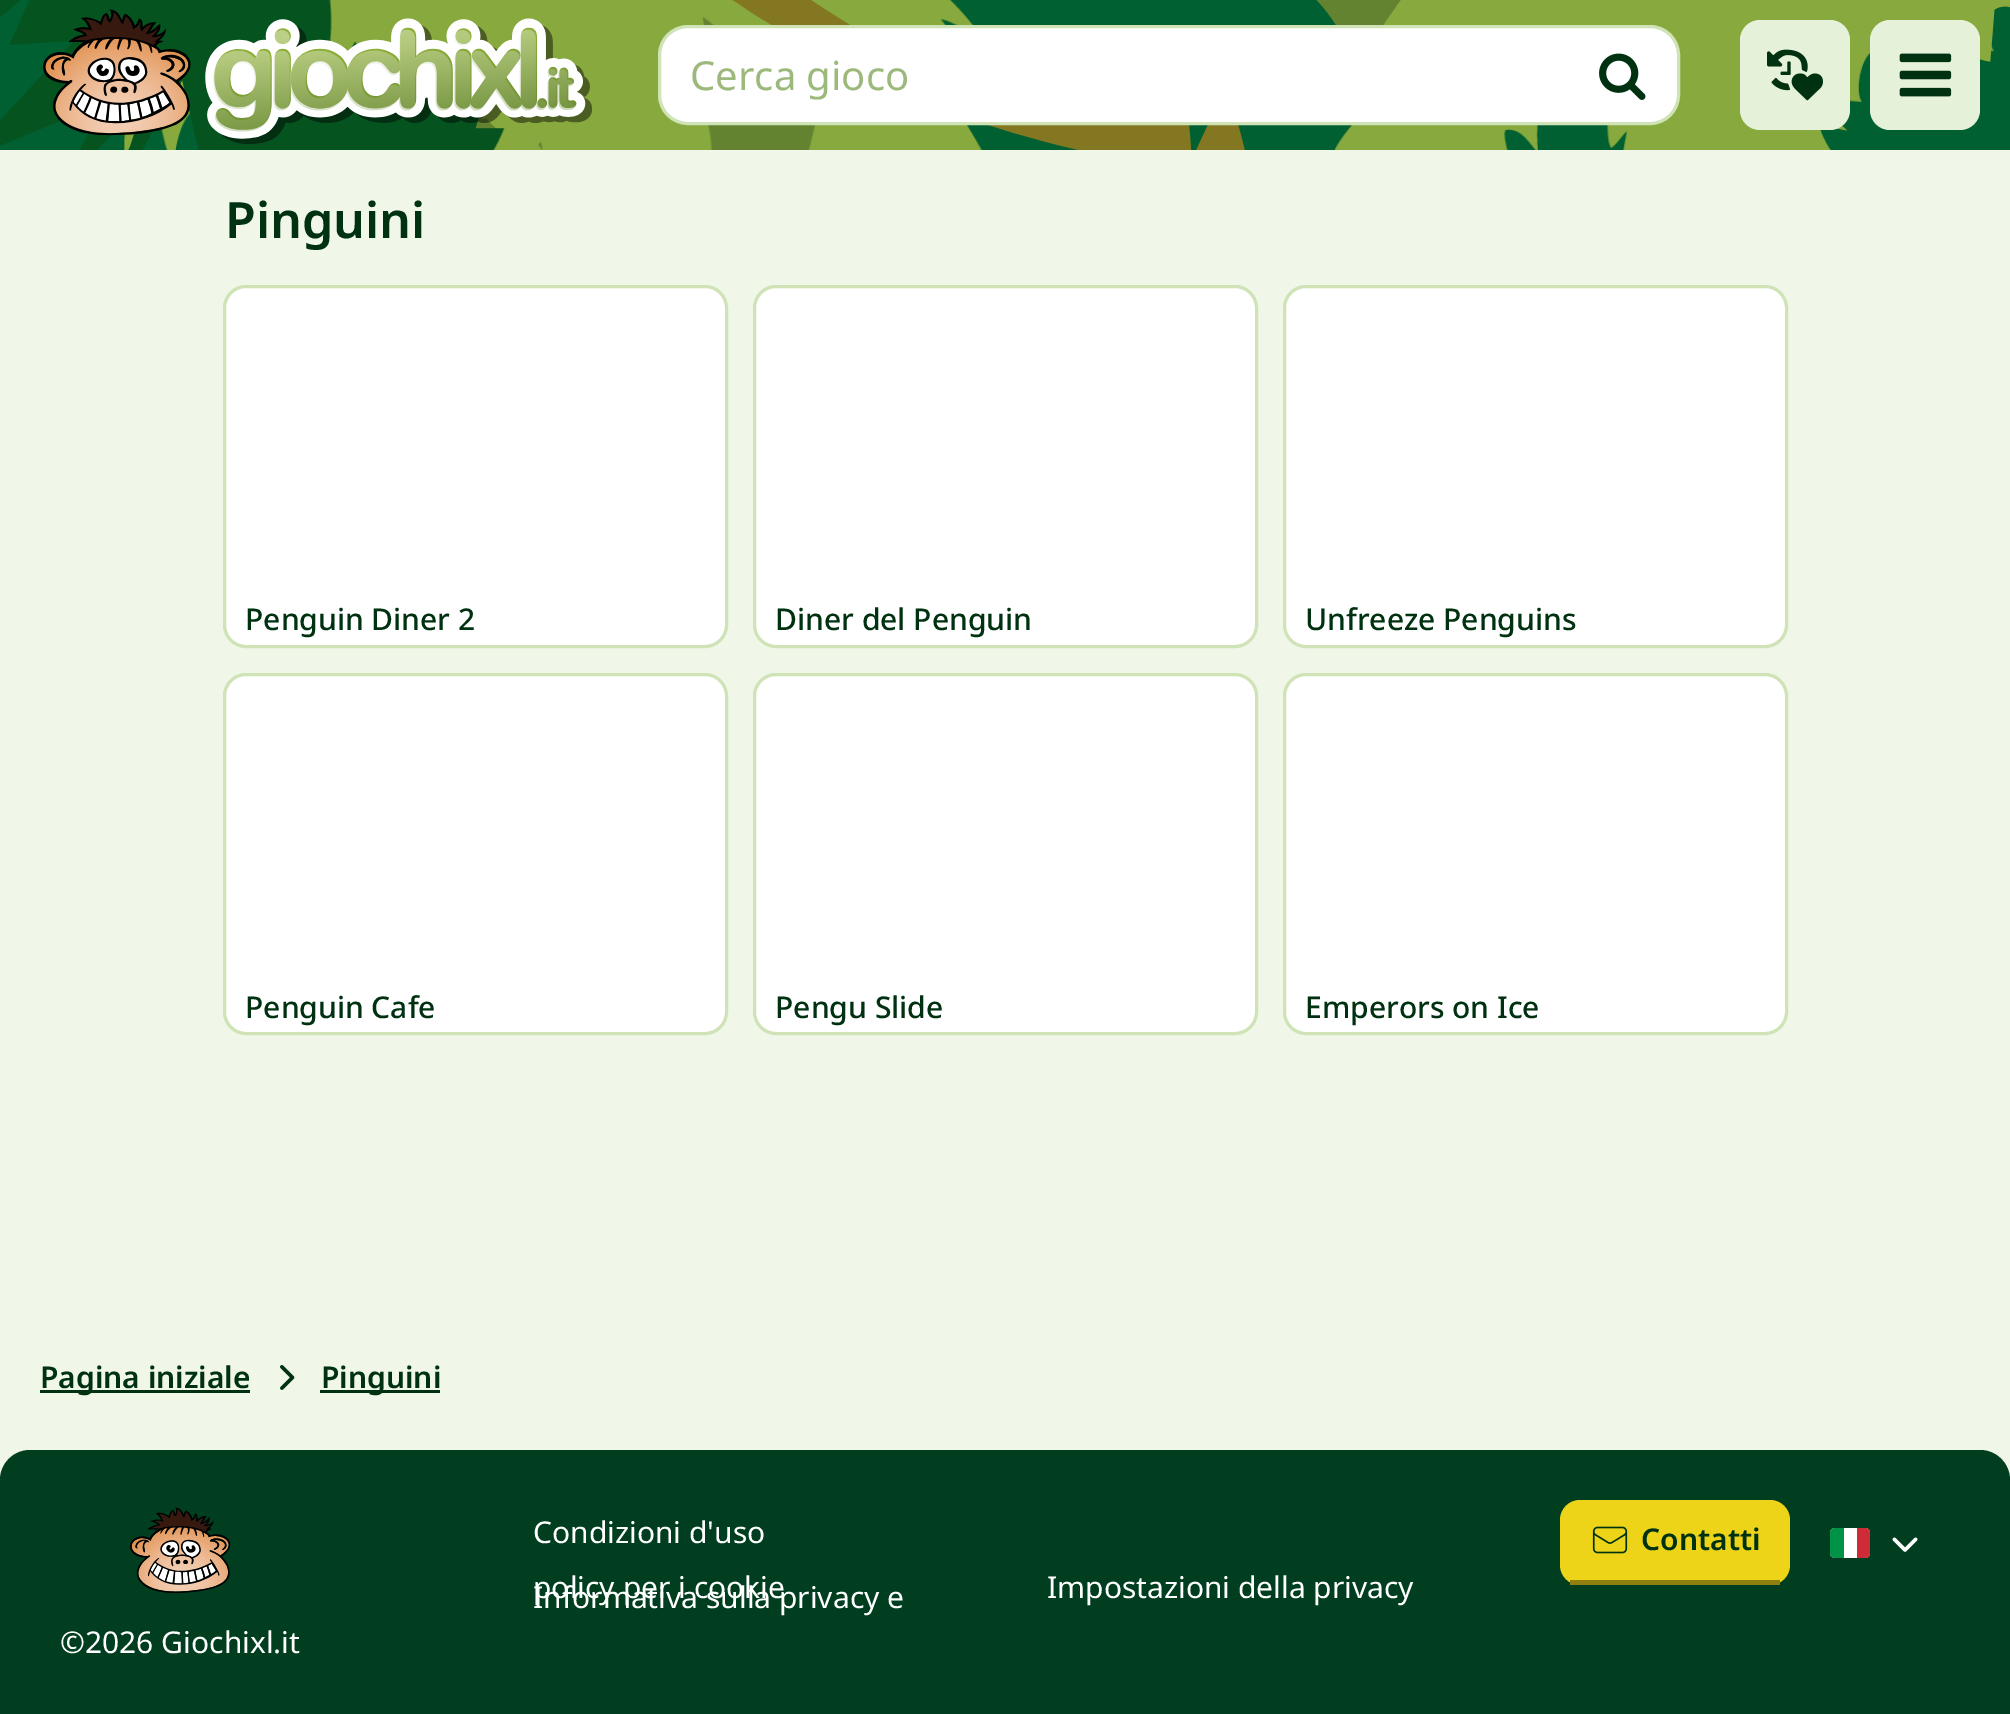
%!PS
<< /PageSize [2010 1714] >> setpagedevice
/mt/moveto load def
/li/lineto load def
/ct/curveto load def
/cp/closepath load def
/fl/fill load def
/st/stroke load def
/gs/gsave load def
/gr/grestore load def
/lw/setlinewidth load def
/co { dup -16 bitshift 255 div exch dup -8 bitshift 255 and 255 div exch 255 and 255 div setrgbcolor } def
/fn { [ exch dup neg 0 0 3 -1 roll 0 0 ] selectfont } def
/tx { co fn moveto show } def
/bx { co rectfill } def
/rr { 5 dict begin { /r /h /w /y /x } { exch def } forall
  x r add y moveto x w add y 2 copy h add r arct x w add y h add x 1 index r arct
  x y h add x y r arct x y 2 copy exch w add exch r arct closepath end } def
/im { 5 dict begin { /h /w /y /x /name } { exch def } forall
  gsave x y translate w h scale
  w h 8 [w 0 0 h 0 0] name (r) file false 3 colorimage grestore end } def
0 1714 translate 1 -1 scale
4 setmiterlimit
0 0 2010 1714 16#F0F7E9 bx
(media/1.raw) 0 0 2010 150 im
(media/2.raw) 43 9 550 135 im
16#FFFFFF co
659.5 26.5 1019 97 28.5 rr gs fl gr
16#CFE3B7 co
3 lw
st
(media/3.raw) 1599 53 47 47 im
16#E6F1DA co
1740 20 110 110 20 rr fl
(media/4.raw) 1767 49 56 52 im
1870 20 110 110 20 rr fl
(media/5.raw) 1899 53 53 44 im
16#FFFFFF co
224.5 286.5 502 360 21.5 rr gs fl gr
16#CFE3B7 co
st
16#FFFFFF co
754.5 286.5 502 360 21.5 rr gs fl gr
16#CFE3B7 co
st
16#FFFFFF co
1284.5 286.5 502 360 21.5 rr gs fl gr
16#CFE3B7 co
st
16#FFFFFF co
224.5 674.5 502 359 21.5 rr gs fl gr
16#CFE3B7 co
st
16#FFFFFF co
754.5 674.5 502 359 21.5 rr gs fl gr
16#CFE3B7 co
st
16#FFFFFF co
1284.5 674.5 502 359 21.5 rr gs fl gr
16#CFE3B7 co
st
40 1390 210 3 16#003212 bx
(media/6.raw) 280 1365 15 25 im
320 1390 120 3 16#003212 bx
16#003E1F co
30 1450 mt 1980 1450 li 1996.5 1450 2010 1463.5 2010 1480 ct 2010 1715 li 0 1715 li 0 1480 li 0 1463.5 13.5 1450 30 1450 ct cp fl
16#EED419 co
1560 1500 230 85 20 rr fl
1570 1580 210 5 16#8F7F0F bx
(media/7.raw) 1592 1526 36 28 im
16#FFFFFF co
1830 1528 40 30 5 rr fl
16#009246 co
1835 1528 mt 1844 1528 li 1844 1558 li 1835 1558 li 1832 1558 1830 1556 1830 1553 ct 1830 1533 li 1830 1530 1832 1528 1835 1528 ct cp fl
16#CE2B37 co
1857 1528 mt 1865 1528 li 1868 1528 1870 1530 1870 1533 ct 1870 1553 li 1870 1556 1868 1558 1865 1558 ct 1857 1558 li cp fl
(media/8.raw) 1892 1537 26 15 im
(media/9.raw) 130 1507 100 86 im
(Cerca gioco) 690 90 /NotoSans-Regular 40 16#9CB87A tx
(Pinguini) 225 238 /NotoSans-SemiBold 50 16#003212 tx
(Penguin Diner 2) 245 630 /NotoSans-Medium 30 16#003212 tx
(Diner del Penguin) 775 630 /NotoSans-Medium 30 16#003212 tx
(Unfreeze Penguins) 1305 630 /NotoSans-Medium 30 16#003212 tx
(Penguin Cafe) 245 1018 /NotoSans-Medium 30 16#003212 tx
(Pengu Slide) 775 1018 /NotoSans-Medium 30 16#003212 tx
(Emperors on Ice) 1305 1018 /NotoSans-Medium 30 16#003212 tx
(Pagina iniziale) 40 1388 /NotoSans-SemiBold 30 16#003212 tx
(Pinguini) 321 1388 /NotoSans-SemiBold 30 16#003212 tx
(Condizioni d'uso) 533 1543 /NotoSans-Regular 30 16#FFFFFF tx
(Informativa sulla privacy e) 533 1608 /NotoSans-Regular 30 16#FFFFFF tx
(policy per i cookie) 533 1598 /NotoSans-Regular 30 16#FFFFFF tx
(Impostazioni della privacy) 1047 1598 /NotoSans-Regular 30 16#FFFFFF tx
(Contatti) 1641 1550 /NotoSans-SemiBold 30 16#003212 tx
(©2026 Giochixl.it) 60 1653 /NotoSans-Regular 30 16#FFFFFF tx
showpage
